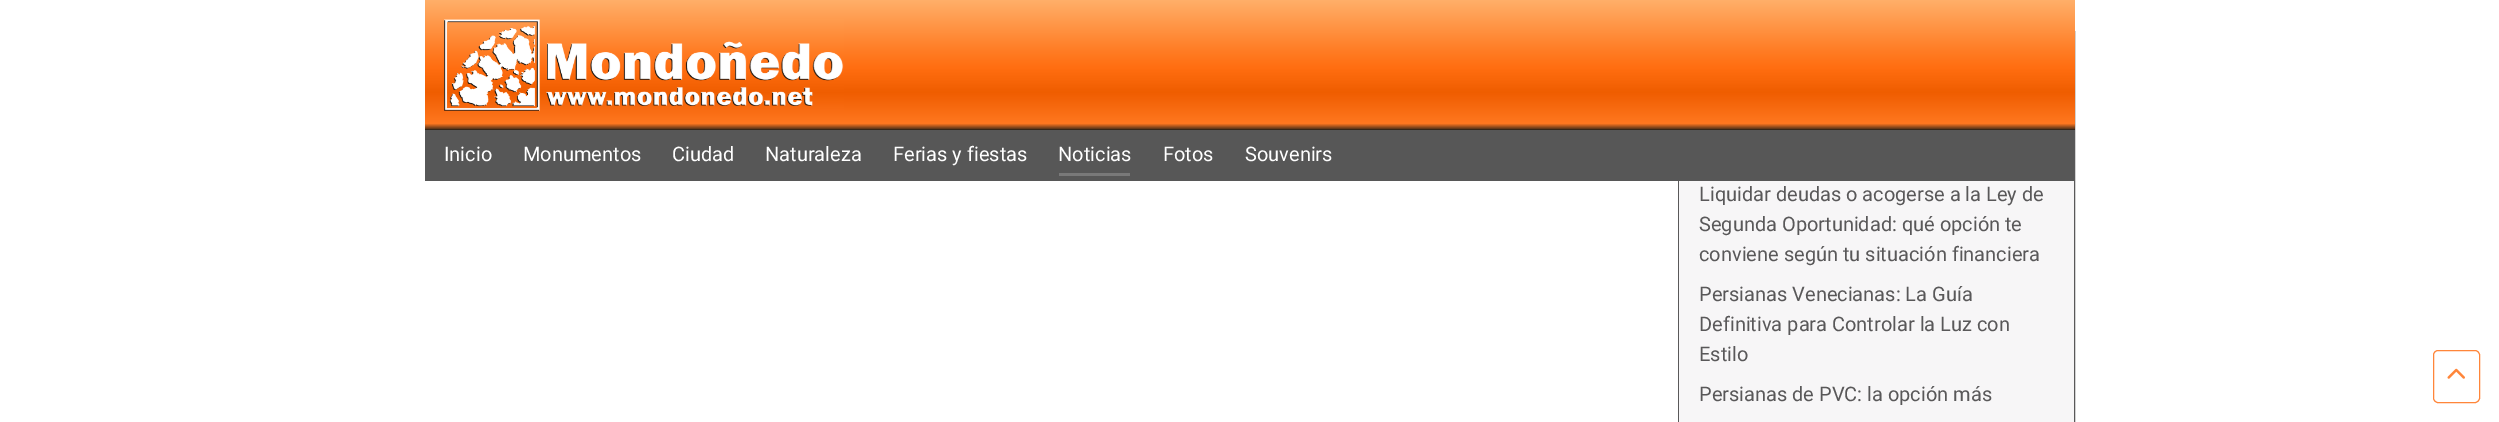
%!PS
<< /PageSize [2499 422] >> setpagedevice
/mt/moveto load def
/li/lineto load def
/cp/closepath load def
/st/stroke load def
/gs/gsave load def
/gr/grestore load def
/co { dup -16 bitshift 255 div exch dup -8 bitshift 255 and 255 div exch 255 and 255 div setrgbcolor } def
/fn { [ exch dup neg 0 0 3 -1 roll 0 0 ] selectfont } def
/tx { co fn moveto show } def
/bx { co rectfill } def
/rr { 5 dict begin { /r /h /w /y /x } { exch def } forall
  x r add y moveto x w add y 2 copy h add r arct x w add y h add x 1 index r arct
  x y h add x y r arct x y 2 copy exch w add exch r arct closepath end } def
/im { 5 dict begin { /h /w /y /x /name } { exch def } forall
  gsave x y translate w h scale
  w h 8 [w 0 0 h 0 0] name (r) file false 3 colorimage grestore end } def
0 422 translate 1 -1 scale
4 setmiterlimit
0 0 2499 422 16#FFFFFF bx
16#595859 co
1678.5 31.5 396 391 rectstroke
gs 425 0 mt 2075 0 li 2075 130 li 425 130 li cp clip newpath
<< /ShadingType 2 /ColorSpace /DeviceRGB /Coords [1250 0 1250 130] /Extend [true true] /Function << /FunctionType 3 /Domain [0 1] /Functions [<< /FunctionType 2 /Domain [0 1] /C0 [1 .686 .412] /C1 [1 .478 .129] /N 1 >> << /FunctionType 2 /Domain [0 1] /C0 [1 .478 .129] /C1 [1 .427 .063] /N 1 >> << /FunctionType 2 /Domain [0 1] /C0 [1 .427 .063] /C1 [.937 .365 0] /N 1 >> << /FunctionType 2 /Domain [0 1] /C0 [.937 .365 0] /C1 [1 .467 .125] /N 1 >> << /FunctionType 2 /Domain [0 1] /C0 [1 .467 .125] /C1 [.216 .149 .09] /N 1 >>] /Bounds [.41 .53 .71 .95] /Encode [0 1 0 1 0 1 0 1 0 1] >> >> shfill gr
(media/1.raw) 444 19 400 92 im
425 130 1649 51 16#575757 bx
1059 173 71 3 16#797979 bx
1679 181 395 241 16#F7F6F7 bx
16#FF863A co
2433.5 350.5 46 52 4.5 rr st
(media/2.raw) 2447 368 18 11 im
(Inicio) 444 161 /Roboto-Regular 20 16#FFFFFF tx
(Monumentos) 523 161 /Roboto-Regular 20 16#FFFFFF tx
(Ciudad) 672 161 /Roboto-Regular 20 16#FFFFFF tx
(Naturaleza) 765 161 /Roboto-Regular 20 16#FFFFFF tx
(Ferias y fiestas) 893 161 /Roboto-Regular 20 16#FFFFFF tx
(Noticias) 1058 161 /Roboto-Regular 20 16#FFFFFF tx
(Fotos) 1163 161 /Roboto-Regular 20 16#FFFFFF tx
(Souvenirs) 1245 161 /Roboto-Regular 20 16#FFFFFF tx
(Liquidar deudas o acogerse a la Ley de) 1699 201 /Roboto-Regular 20 16#595859 tx
(Segunda Oportunidad: qué opción te) 1699 231 /Roboto-Regular 20 16#595859 tx
(conviene según tu situación financiera) 1699 261 /Roboto-Regular 20 16#595859 tx
(Persianas Venecianas: La Guía) 1699 301 /Roboto-Regular 20 16#595859 tx
(Definitiva para Controlar la Luz con) 1699 331 /Roboto-Regular 20 16#595859 tx
(Estilo) 1699 361 /Roboto-Regular 20 16#595859 tx
(Persianas de PVC: la opción más) 1699 401 /Roboto-Regular 20 16#595859 tx
showpage
